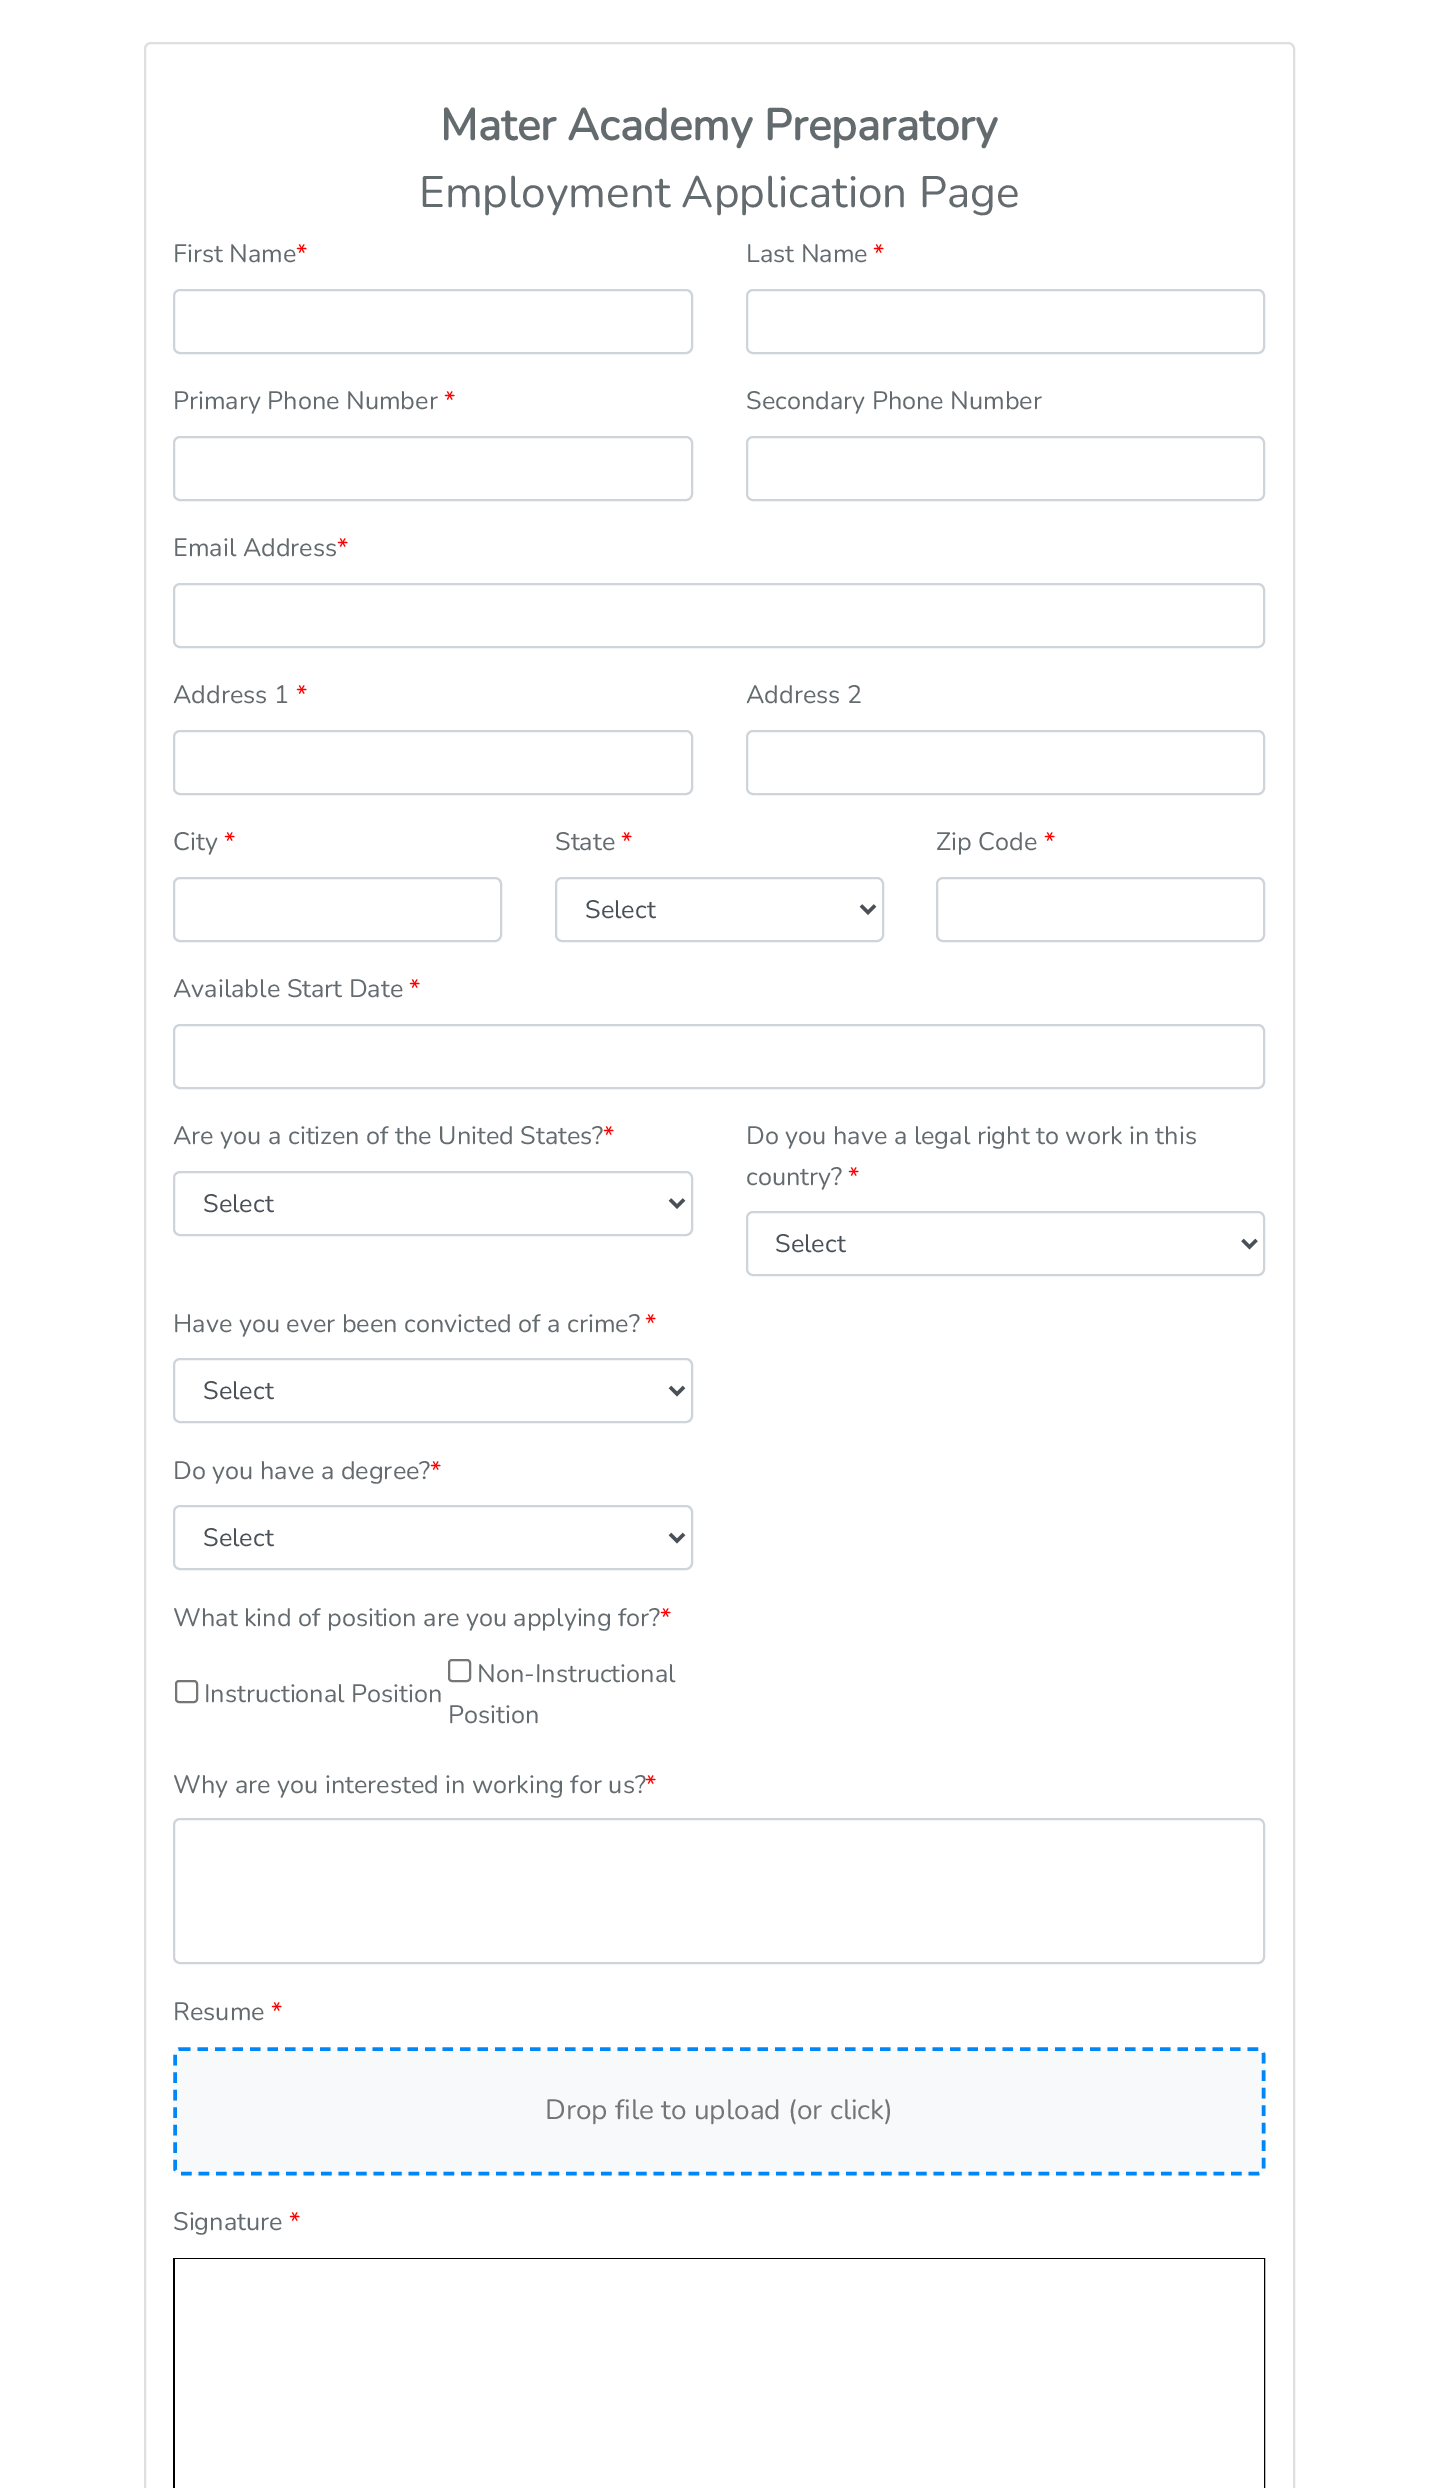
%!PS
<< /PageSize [1438 2488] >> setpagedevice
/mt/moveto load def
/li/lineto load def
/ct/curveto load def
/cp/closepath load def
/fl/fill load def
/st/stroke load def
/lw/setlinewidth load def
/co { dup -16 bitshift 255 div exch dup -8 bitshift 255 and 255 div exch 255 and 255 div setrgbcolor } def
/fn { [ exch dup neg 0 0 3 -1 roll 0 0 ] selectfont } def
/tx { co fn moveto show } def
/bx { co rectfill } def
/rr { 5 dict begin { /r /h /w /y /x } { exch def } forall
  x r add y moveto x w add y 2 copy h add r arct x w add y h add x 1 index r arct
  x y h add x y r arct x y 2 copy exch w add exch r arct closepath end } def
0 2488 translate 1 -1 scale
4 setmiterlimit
0 0 1438 2488 16#FFFFFF bx
16#DFDFDF co
2 lw
145 43 1149 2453 6 rr st
16#CED4DA co
174 290 518 63 6 rr st
747 290 517 63 6 rr st
174 437 518 63 6 rr st
747 437 517 63 6 rr st
174 584 1090 63 6 rr st
174 731 518 63 6 rr st
747 731 517 63 6 rr st
174 878 327 63 6 rr st
556 878 327 63 6 rr st
16#495057 co
3.5 lw
861 905.5 mt 868 912.5 li 875 905.5 li st
16#CED4DA co
2 lw
937 878 327 63 6 rr st
174 1025 1090 63 6 rr st
174 1172 518 63 6 rr st
16#495057 co
3.5 lw
670 1199.5 mt 677 1206.5 li 684 1199.5 li st
16#CED4DA co
2 lw
747 1212 517 63 6 rr st
16#495057 co
3.5 lw
1242.5 1240 mt 1249.5 1247 li 1256.5 1240 li st
16#CED4DA co
2 lw
174 1359 518 63 6 rr st
16#495057 co
3.5 lw
670 1387 mt 677 1394 li 684 1387 li st
16#CED4DA co
2 lw
174 1506 518 63 6 rr st
16#495057 co
3.5 lw
670 1534 mt 677 1541 li 684 1534 li st
16#767676 co
2 lw
176 1681 21 21 3 rr st
449 1660 21 21 3 rr st
16#CED4DA co
174 1819 1090 144 6 rr st
16#F7F9FA co
173 2048 1092 127 7 rr fl
16#0087F7 co
3.5 lw
[10.5 7] 0 setdash
180 2049 mt 1258 2049 li 1261 2049 1263.5 2051.5 1263.5 2054.5 ct 1263.5 2168 li 1263.5 2171 1261 2173.5 1258 2173.5 ct 180 2173.5 li 177.5 2173.5 175 2171 175 2168 ct 175 2054.5 li 175 2051.5 177.5 2049 180 2049 ct cp st
16#000000 co
2 lw
[] 0 setdash
174 2259 1090 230 rectstroke
175 2259 1089 229 16#FFFFFF bx
(Mater Academy Preparatory) 440 140 /Nunito-Bold 44.1 16#636B6F tx
(Employment Application Page) 419 207 /Nunito-ExtraLight 44.1 16#636B6F tx
(First Name) 173 262 /Nunito-ExtraLight 25.25 16#636B6F tx
(*) 296 262 /Nunito-ExtraLight 25.25 16#FF0000 tx
(Last Name) 746 262 /Nunito-ExtraLight 25.25 16#636B6F tx
(*) 873 262 /Nunito-ExtraLight 25.25 16#FF0000 tx
(Primary Phone Number) 173 409 /Nunito-ExtraLight 25.25 16#636B6F tx
(*) 444 409 /Nunito-ExtraLight 25.25 16#FF0000 tx
(Secondary Phone Number) 746 409 /Nunito-ExtraLight 25.25 16#636B6F tx
(Email Address) 173 556 /Nunito-ExtraLight 25.25 16#636B6F tx
(*) 337 556 /Nunito-ExtraLight 25.25 16#FF0000 tx
(Address 1) 173 703 /Nunito-ExtraLight 25.25 16#636B6F tx
(*) 296 703 /Nunito-ExtraLight 25.25 16#FF0000 tx
(Address 2) 746 703 /Nunito-ExtraLight 25.25 16#636B6F tx
(City) 173 850 /Nunito-ExtraLight 25.25 16#636B6F tx
(*) 224 850 /Nunito-ExtraLight 25.25 16#FF0000 tx
(State) 555 850 /Nunito-ExtraLight 25.25 16#636B6F tx
(*) 621 850 /Nunito-ExtraLight 25.25 16#FF0000 tx
(Select) 585 918 /Nunito-ExtraLight 25.25 16#495057 tx
(Zip Code) 936 850 /Nunito-ExtraLight 25.25 16#636B6F tx
(*) 1044 850 /Nunito-ExtraLight 25.25 16#FF0000 tx
(Available Start Date) 173 997 /Nunito-ExtraLight 25.25 16#636B6F tx
(*) 409 997 /Nunito-ExtraLight 25.25 16#FF0000 tx
(Are you a citizen of the United States?) 173 1144 /Nunito-ExtraLight 25.25 16#636B6F tx
(*) 603 1144 /Nunito-ExtraLight 25.25 16#FF0000 tx
(Select) 203 1212 /Nunito-ExtraLight 25.25 16#495057 tx
(Do you have a legal right to work in this) 746 1144 /Nunito-ExtraLight 25.25 16#636B6F tx
(country?) 746 1185 /Nunito-ExtraLight 25.25 16#636B6F tx
(*) 848 1185 /Nunito-ExtraLight 25.25 16#FF0000 tx
(Select) 775 1252 /Nunito-ExtraLight 25.25 16#495057 tx
(Have you ever been convicted of a crime?) 173 1332 /Nunito-ExtraLight 25.25 16#636B6F tx
(*) 645 1332 /Nunito-ExtraLight 25.25 16#FF0000 tx
(Select) 203 1399 /Nunito-ExtraLight 25.25 16#495057 tx
(Do you have a degree?) 173 1479 /Nunito-ExtraLight 25.25 16#636B6F tx
(*) 430 1479 /Nunito-ExtraLight 25.25 16#FF0000 tx
(Select) 203 1546 /Nunito-ExtraLight 25.25 16#495057 tx
(What kind of position are you applying for?) 173 1626 /Nunito-ExtraLight 25.25 16#636B6F tx
(*) 660 1626 /Nunito-ExtraLight 25.25 16#FF0000 tx
(Instructional Position) 204 1702 /Nunito-ExtraLight 25.25 16#636B6F tx
(Non-Instructional) 477 1682 /Nunito-ExtraLight 25.25 16#636B6F tx
(Position) 448 1723 /Nunito-ExtraLight 25.25 16#636B6F tx
(Why are you interested in working for us?) 173 1793 /Nunito-ExtraLight 25.25 16#636B6F tx
(*) 645 1793 /Nunito-ExtraLight 25.25 16#FF0000 tx
(Resume) 173 2020 /Nunito-ExtraLight 25.25 16#636B6F tx
(*) 271 2020 /Nunito-ExtraLight 25.25 16#FF0000 tx
(Drop file to upload \(or click\)) 545 2119 /Nunito-ExtraLight 28 16#757575 tx
(Signature) 173 2230 /Nunito-ExtraLight 25.25 16#636B6F tx
(*) 289 2230 /Nunito-ExtraLight 25.25 16#FF0000 tx
showpage
